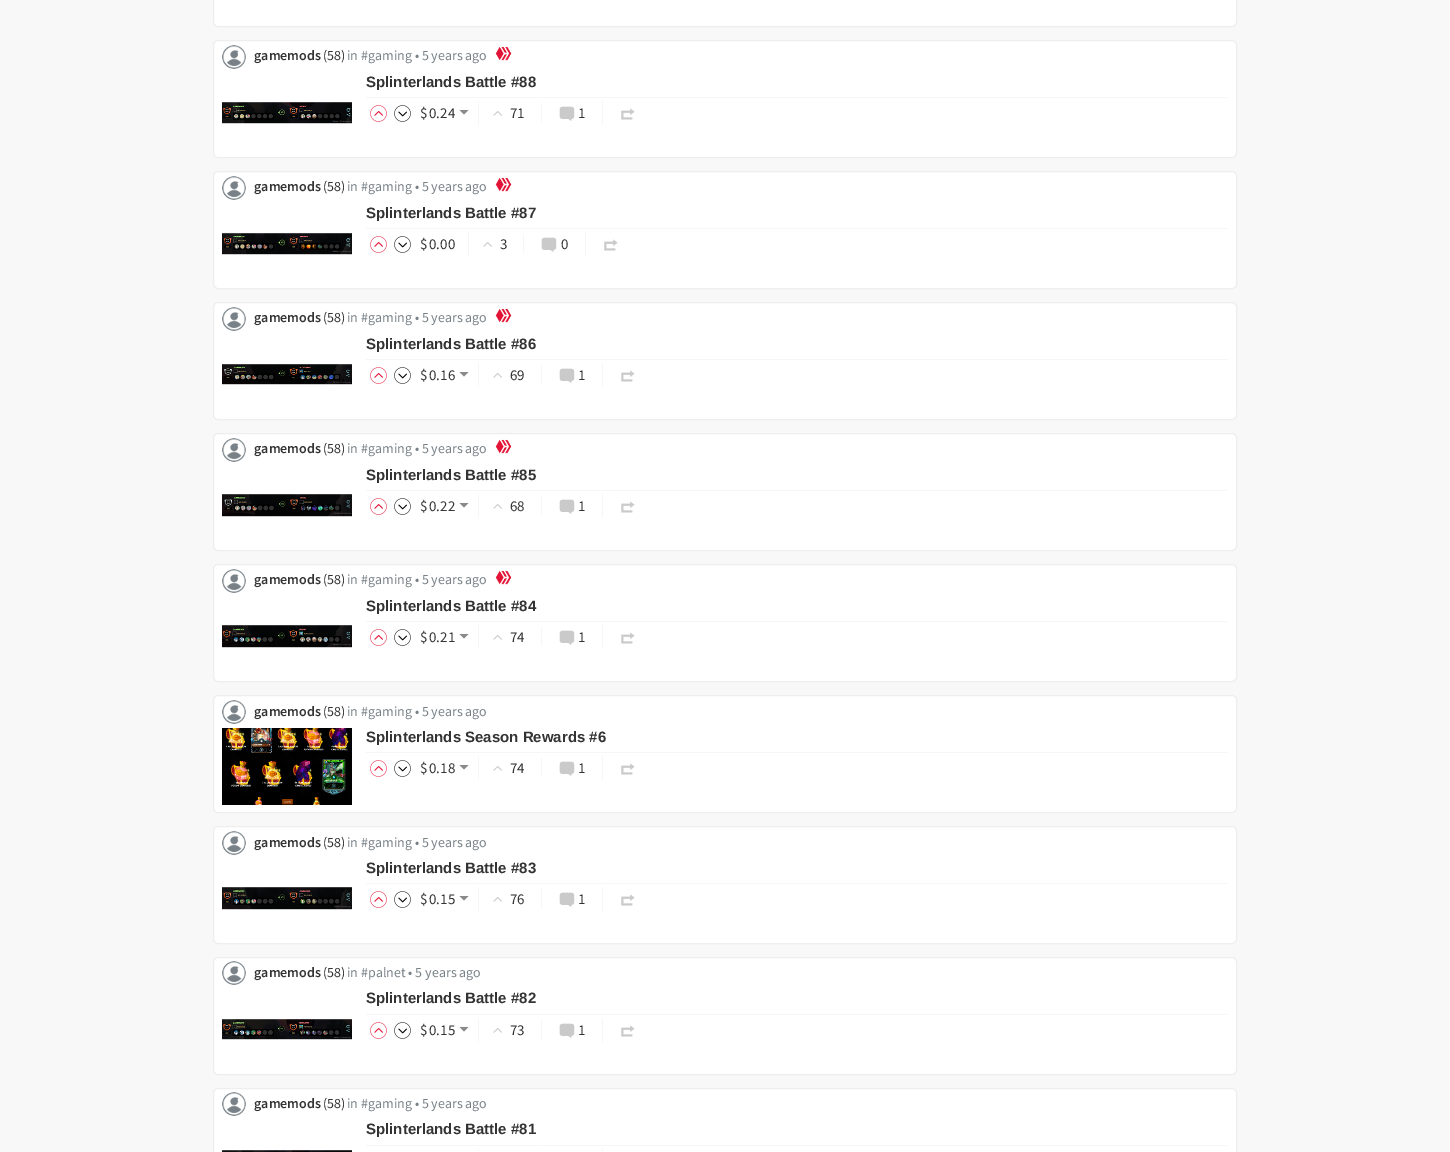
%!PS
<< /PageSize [1450 1152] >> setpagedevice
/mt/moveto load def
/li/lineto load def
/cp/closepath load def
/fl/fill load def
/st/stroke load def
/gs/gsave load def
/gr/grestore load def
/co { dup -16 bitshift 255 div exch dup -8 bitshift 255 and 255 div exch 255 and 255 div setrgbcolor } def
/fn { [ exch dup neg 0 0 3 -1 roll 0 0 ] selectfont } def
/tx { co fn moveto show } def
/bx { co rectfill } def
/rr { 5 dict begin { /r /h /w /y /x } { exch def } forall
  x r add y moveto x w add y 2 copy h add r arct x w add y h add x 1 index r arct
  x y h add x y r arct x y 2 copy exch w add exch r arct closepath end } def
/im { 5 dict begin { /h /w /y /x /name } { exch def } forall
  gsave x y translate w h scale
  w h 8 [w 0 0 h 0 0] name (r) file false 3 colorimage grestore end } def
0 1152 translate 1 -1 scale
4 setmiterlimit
0 0 1450 1152 16#F8F8F8 bx
16#FFFFFF co
213.5 -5.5 1023 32 4.5 rr gs fl gr
16#EEEEEE co
st
16#FFFFFF co
213.5 40.5 1023 117 4.5 rr gs fl gr
16#EEEEEE co
st
(media/1.raw) 222 45 24 24 im
(media/2.raw) 495 46 17 15 im
(media/3.raw) 222 102 130 22 im
366 97 862 1 16#F6F6F6 bx
478 101 1 24 16#F6F6F6 bx
(media/4.raw) 370 105 17 17 im
(media/5.raw) 394 105 17 17 im
16#8A8A8A co
459.5 110 mt 464 114.5 li 468.5 110 li cp fl
541 103 1 19 16#F6F6F6 bx
(media/6.raw) 493 111 9 5 im
(media/7.raw) 559 106 16 15 im
602 101 1 24 16#F6F6F6 bx
(media/8.raw) 621 108 14 12 im
16#FFFFFF co
213.5 171.5 1023 117 4.5 rr gs fl gr
16#EEEEEE co
st
(media/1.raw) 222 176 24 24 im
(media/2.raw) 495 177 17 15 im
(media/9.raw) 222 233 130 22 im
366 228 862 1 16#F6F6F6 bx
468 232 1 24 16#F6F6F6 bx
(media/4.raw) 370 236 17 17 im
(media/5.raw) 394 236 17 17 im
523 234 1 19 16#F6F6F6 bx
(media/6.raw) 483 242 9 5 im
(media/7.raw) 541 237 16 15 im
585 232 1 24 16#F6F6F6 bx
(media/8.raw) 604 239 14 12 im
16#FFFFFF co
213.5 302.5 1023 117 4.5 rr gs fl gr
16#EEEEEE co
st
(media/1.raw) 222 307 24 24 im
(media/2.raw) 495 308 17 15 im
(media/10.raw) 222 364 130 21 im
366 359 862 1 16#F6F6F6 bx
478 363 1 24 16#F6F6F6 bx
(media/4.raw) 370 367 17 17 im
(media/5.raw) 394 367 17 17 im
16#8A8A8A co
459.5 372 mt 464 376.5 li 468.5 372 li cp fl
541 365 1 19 16#F6F6F6 bx
(media/6.raw) 493 373 9 5 im
(media/7.raw) 559 368 16 15 im
602 363 1 24 16#F6F6F6 bx
(media/8.raw) 621 370 14 12 im
16#FFFFFF co
213.5 433.5 1023 117 4.5 rr gs fl gr
16#EEEEEE co
st
(media/1.raw) 222 438 24 24 im
(media/2.raw) 495 439 17 15 im
(media/11.raw) 222 494 130 23 im
366 490 862 1 16#F6F6F6 bx
478 494 1 24 16#F6F6F6 bx
(media/4.raw) 370 498 17 17 im
(media/5.raw) 394 498 17 17 im
16#8A8A8A co
459.5 503 mt 464 507.5 li 468.5 503 li cp fl
541 496 1 19 16#F6F6F6 bx
(media/6.raw) 493 504 9 5 im
(media/7.raw) 559 499 16 15 im
602 494 1 24 16#F6F6F6 bx
(media/8.raw) 621 501 14 12 im
16#FFFFFF co
213.5 564.5 1023 117 4.5 rr gs fl gr
16#EEEEEE co
st
(media/1.raw) 222 569 24 24 im
(media/12.raw) 495 570 17 15 im
(media/13.raw) 222 625 130 23 im
366 621 862 1 16#F6F6F6 bx
478 625 1 24 16#F6F6F6 bx
(media/4.raw) 370 629 17 17 im
(media/5.raw) 394 629 17 17 im
16#8A8A8A co
459.5 634 mt 464 638.5 li 468.5 634 li cp fl
541 627 1 19 16#F6F6F6 bx
(media/6.raw) 493 635 9 5 im
(media/7.raw) 559 630 16 15 im
602 625 1 24 16#F6F6F6 bx
(media/8.raw) 621 632 14 12 im
16#FFFFFF co
213.5 695.5 1023 117 4.5 rr gs fl gr
16#EEEEEE co
st
(media/1.raw) 222 700 24 24 im
(media/14.raw) 222 728 130 77 im
366 752 862 1 16#F6F6F6 bx
478 756 1 24 16#F6F6F6 bx
(media/4.raw) 370 760 17 17 im
(media/5.raw) 394 760 17 17 im
16#8A8A8A co
459.5 765 mt 464 769.5 li 468.5 765 li cp fl
541 758 1 19 16#F6F6F6 bx
(media/6.raw) 493 766 9 5 im
(media/7.raw) 559 761 16 15 im
602 756 1 24 16#F6F6F6 bx
(media/8.raw) 621 763 14 12 im
16#FFFFFF co
213.5 826.5 1023 117 4.5 rr gs fl gr
16#EEEEEE co
st
(media/1.raw) 222 831 24 24 im
(media/15.raw) 222 887 130 23 im
366 883 862 1 16#F6F6F6 bx
478 887 1 24 16#F6F6F6 bx
(media/4.raw) 370 891 17 17 im
(media/5.raw) 394 891 17 17 im
16#8A8A8A co
459.5 896 mt 464 900.5 li 468.5 896 li cp fl
541 889 1 19 16#F6F6F6 bx
(media/6.raw) 493 897 9 5 im
(media/7.raw) 559 892 16 15 im
602 887 1 24 16#F6F6F6 bx
(media/8.raw) 621 894 14 12 im
16#FFFFFF co
213.5 957.5 1023 117 4.5 rr gs fl gr
16#EEEEEE co
st
(media/1.raw) 222 961 24 24 im
(media/16.raw) 222 1019 130 21 im
366 1014 862 1 16#F6F6F6 bx
478 1018 1 24 16#F6F6F6 bx
(media/4.raw) 370 1022 17 17 im
(media/5.raw) 394 1022 17 17 im
16#8A8A8A co
459.5 1027 mt 464 1031.5 li 468.5 1027 li cp fl
541 1020 1 19 16#F6F6F6 bx
(media/6.raw) 493 1028 9 5 im
(media/7.raw) 559 1023 16 15 im
602 1018 1 24 16#F6F6F6 bx
(media/8.raw) 621 1025 14 12 im
16#FFFFFF co
213.5 1088.5 1023 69 4.5 rr gs fl gr
16#EEEEEE co
st
(media/1.raw) 222 1092 24 24 im
366 1145 862 1 16#F6F6F6 bx
478 1149 1 3 16#F6F6F6 bx
541 1151 1 1 16#F6F6F6 bx
602 1149 1 3 16#F6F6F6 bx
(media/17.raw) 222 1150 130 2 im
(gamemods) 254 60 /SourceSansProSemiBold-SemiBold 14 16#333333 tx
(\(58\)) 323 60 /SourceSansPro-Regular 14 16#333333 tx
(in #gaming • 5 years ago) 347 60 /SourceSansPro-Regular 14 16#788187 tx
(Splinterlands Battle #88) 366 87 /LiberationSans-Bold 15 16#333333 tx
($) 420 118 /SourceSansPro-Regular 15 16#333333 tx
(0.24) 429 118 /SourceSansPro-Regular 15 16#333333 tx
(71) 510 118 /SourceSansPro-Regular 15 16#333333 tx
(1) 578 118 /SourceSansPro-Regular 15 16#333333 tx
(gamemods) 254 191 /SourceSansProSemiBold-SemiBold 14 16#333333 tx
(\(58\)) 323 191 /SourceSansPro-Regular 14 16#333333 tx
(in #gaming • 5 years ago) 347 191 /SourceSansPro-Regular 14 16#788187 tx
(Splinterlands Battle #87) 366 218 /LiberationSans-Bold 15 16#333333 tx
($) 420 249 /SourceSansPro-Regular 15 16#333333 tx
(0.00) 429 249 /SourceSansPro-Regular 15 16#333333 tx
(3) 500 249 /SourceSansPro-Regular 15 16#333333 tx
(0) 561 249 /SourceSansPro-Regular 15 16#333333 tx
(gamemods) 254 322 /SourceSansProSemiBold-SemiBold 14 16#333333 tx
(\(58\)) 323 322 /SourceSansPro-Regular 14 16#333333 tx
(in #gaming • 5 years ago) 347 322 /SourceSansPro-Regular 14 16#788187 tx
(Splinterlands Battle #86) 366 349 /LiberationSans-Bold 15 16#333333 tx
($) 420 380 /SourceSansPro-Regular 15 16#333333 tx
(0.16) 429 380 /SourceSansPro-Regular 15 16#333333 tx
(69) 510 380 /SourceSansPro-Regular 15 16#333333 tx
(1) 578 380 /SourceSansPro-Regular 15 16#333333 tx
(gamemods) 254 453 /SourceSansProSemiBold-SemiBold 14 16#333333 tx
(\(58\)) 323 453 /SourceSansPro-Regular 14 16#333333 tx
(in #gaming • 5 years ago) 347 453 /SourceSansPro-Regular 14 16#788187 tx
(Splinterlands Battle #85) 366 480 /LiberationSans-Bold 15 16#333333 tx
($) 420 511 /SourceSansPro-Regular 15 16#333333 tx
(0.22) 429 511 /SourceSansPro-Regular 15 16#333333 tx
(68) 510 511 /SourceSansPro-Regular 15 16#333333 tx
(1) 578 511 /SourceSansPro-Regular 15 16#333333 tx
(gamemods) 254 584 /SourceSansProSemiBold-SemiBold 14 16#333333 tx
(\(58\)) 323 584 /SourceSansPro-Regular 14 16#333333 tx
(in #gaming • 5 years ago) 347 584 /SourceSansPro-Regular 14 16#788187 tx
(Splinterlands Battle #84) 366 611 /LiberationSans-Bold 15 16#333333 tx
($) 420 642 /SourceSansPro-Regular 15 16#333333 tx
(0.21) 429 642 /SourceSansPro-Regular 15 16#333333 tx
(74) 510 642 /SourceSansPro-Regular 15 16#333333 tx
(1) 578 642 /SourceSansPro-Regular 15 16#333333 tx
(gamemods) 254 716 /SourceSansProSemiBold-SemiBold 14 16#333333 tx
(\(58\)) 323 716 /SourceSansPro-Regular 14 16#333333 tx
(in #gaming • 5 years ago) 347 716 /SourceSansPro-Regular 14 16#788187 tx
(Splinterlands Season Rewards #6) 366 742 /LiberationSans-Bold 15 16#333333 tx
($) 420 773 /SourceSansPro-Regular 15 16#333333 tx
(0.18) 429 773 /SourceSansPro-Regular 15 16#333333 tx
(74) 510 773 /SourceSansPro-Regular 15 16#333333 tx
(1) 578 773 /SourceSansPro-Regular 15 16#333333 tx
(gamemods) 254 847 /SourceSansProSemiBold-SemiBold 14 16#333333 tx
(\(58\)) 323 847 /SourceSansPro-Regular 14 16#333333 tx
(in #gaming • 5 years ago) 347 847 /SourceSansPro-Regular 14 16#788187 tx
(Splinterlands Battle #83) 366 873 /LiberationSans-Bold 15 16#333333 tx
($) 420 904 /SourceSansPro-Regular 15 16#333333 tx
(0.15) 429 904 /SourceSansPro-Regular 15 16#333333 tx
(76) 510 904 /SourceSansPro-Regular 15 16#333333 tx
(1) 578 904 /SourceSansPro-Regular 15 16#333333 tx
(gamemods) 254 977 /SourceSansProSemiBold-SemiBold 14 16#333333 tx
(\(58\)) 323 977 /SourceSansPro-Regular 14 16#333333 tx
(in #palnet • 5 years ago) 347 977 /SourceSansPro-Regular 14 16#788187 tx
(Splinterlands Battle #82) 366 1003 /LiberationSans-Bold 15 16#333333 tx
($) 420 1035 /SourceSansPro-Regular 15 16#333333 tx
(0.15) 429 1035 /SourceSansPro-Regular 15 16#333333 tx
(73) 510 1035 /SourceSansPro-Regular 15 16#333333 tx
(1) 578 1035 /SourceSansPro-Regular 15 16#333333 tx
(gamemods) 254 1108 /SourceSansProSemiBold-SemiBold 14 16#333333 tx
(\(58\)) 323 1108 /SourceSansPro-Regular 14 16#333333 tx
(in #gaming • 5 years ago) 347 1108 /SourceSansPro-Regular 14 16#788187 tx
(Splinterlands Battle #81) 366 1134 /LiberationSans-Bold 15 16#333333 tx
showpage
